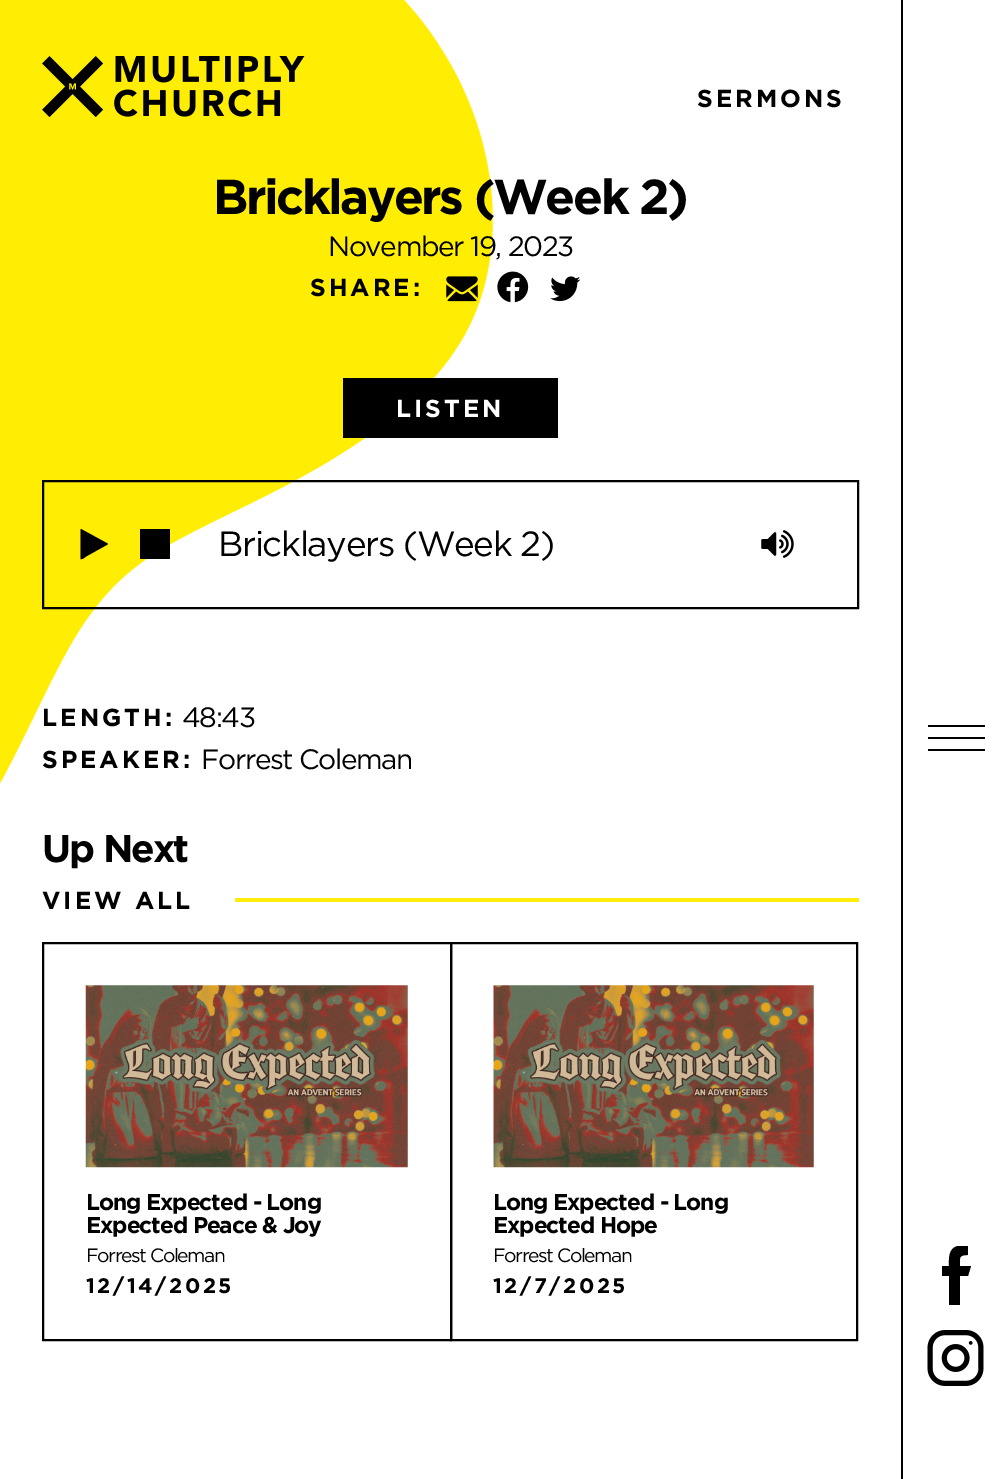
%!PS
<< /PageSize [1005 1479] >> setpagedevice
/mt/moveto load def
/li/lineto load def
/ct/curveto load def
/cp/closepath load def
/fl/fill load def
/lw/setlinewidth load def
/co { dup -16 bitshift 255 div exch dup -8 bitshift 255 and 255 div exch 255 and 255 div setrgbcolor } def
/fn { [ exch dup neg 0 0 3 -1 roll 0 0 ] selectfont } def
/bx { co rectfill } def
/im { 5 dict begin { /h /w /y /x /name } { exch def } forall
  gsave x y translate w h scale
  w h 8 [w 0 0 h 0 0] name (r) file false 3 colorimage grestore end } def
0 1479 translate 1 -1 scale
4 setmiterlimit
0 0 1005 1479 16#FFFFFF bx
16#FFEE03 co
235 511 mt 160 548 118 566 74 639 ct 30 713 -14 842 -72 869 ct -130 895 -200 820 -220 736 ct -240 651 -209 560 -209 495 ct -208 430 -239 392 -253 343 ct -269 286 -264 226 -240 173 ct -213 116 -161 65 -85 9 ct -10 -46 89 -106 189 -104 ct 288 -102 387 -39 442 50 ct 498 138 511 253 464 336 ct 416 421 309 475 235 511 ct cp fl
(media/1.raw) 42 56 263 61 im
(media/2.raw) 446 276 32 26 im
(media/3.raw) 497 271 32 32 im
(media/4.raw) 550 276 31 26 im
343 378 215 60 16#000000 bx
2 lw
43 481 815 127 rectstroke
107.5 544.5 mt 86 556.5 li 85.5 557 81.5 560 80.5 559 ct 80.5 529.5 li 81 529 li 107.5 543.5 li 108 544 li cp fl
140 529 30 30 16#000000 bx
(media/5.raw) 761 530 33 28 im
235 898 624 4 16#FCEE07 bx
16#000000 co
43 943 408 397 rectstroke
(media/6.raw) 85 985 323 183 im
451 943 406 397 rectstroke
(media/7.raw) 493 985 321 183 im
901 0 2 1479 16#000000 bx
928 737 57 2 16#000000 bx
928 725 57 2 16#000000 bx
928 749 57 2 16#000000 bx
960 1266 mt 960 1258 958 1255 968 1255 ct 968 1246 li 958 1246 li 948 1248 949 1259 949 1266 ct 942 1266 li 942 1276 li 949 1276 li 949 1305 li 960 1305 li 960 1276 li 968 1276 li 971 1266 li cp fl
(media/8.raw) 927 1330 57 56 im
/Gotham-Bold 24.5 fn
697 107 mt 3 0 (SERMONS) ashow
/Gotham-Bold 49 fn
213 214 mt -2.5 0 (Bricklayers \(Week 2\)) ashow
/Gotham-Regular 28 fn
328 256 mt -1.4 0 (November 19, 2023) ashow
/Gotham-Bold 24.5 fn
310 296 mt 3 0 (SHARE:) ashow
16#FFFFFF co
396 417 mt 3 0 (LISTEN) ashow
/Gotham-Regular 35 fn
16#000000 co
218 556 mt -1.4 0 (Bricklayers \(Week 2\)) ashow
/Gotham-Bold 24.5 fn
42 726 mt 3 0 (LENGTH:) ashow
/Gotham-Regular 28 fn
182 727 mt -1.4 0 (48:43) ashow
/Gotham-Bold 24.5 fn
42 768 mt 3 0 (SPEAKER:) ashow
/Gotham-Regular 28 fn
201 769 mt -1.4 0 (Forrest Coleman) ashow
/Gotham-Bold 38.5 fn
42 862 mt -2 0 (Up Next) ashow
/Gotham-Bold 24.5 fn
42 909 mt 3 0 (VIEW ALL) ashow
/Gotham-Bold 22.75 fn
86 1210 mt -1.1 0 (Long Expected - Long) ashow
86 1233 mt -1.1 0 (Expected Peace & Joy) ashow
/Gotham-Regular 19.25 fn
86 1262 mt -1.4 0 (Forrest Coleman) ashow
/Gotham-Bold 21 fn
86 1293 mt 2.6 0 (12/14/2025) ashow
/Gotham-Bold 22.75 fn
493 1210 mt -1.1 0 (Long Expected - Long) ashow
493 1233 mt -1.1 0 (Expected Hope) ashow
/Gotham-Regular 19.25 fn
493 1262 mt -1.4 0 (Forrest Coleman) ashow
/Gotham-Bold 21 fn
493 1293 mt 2.6 0 (12/7/2025) ashow
showpage
